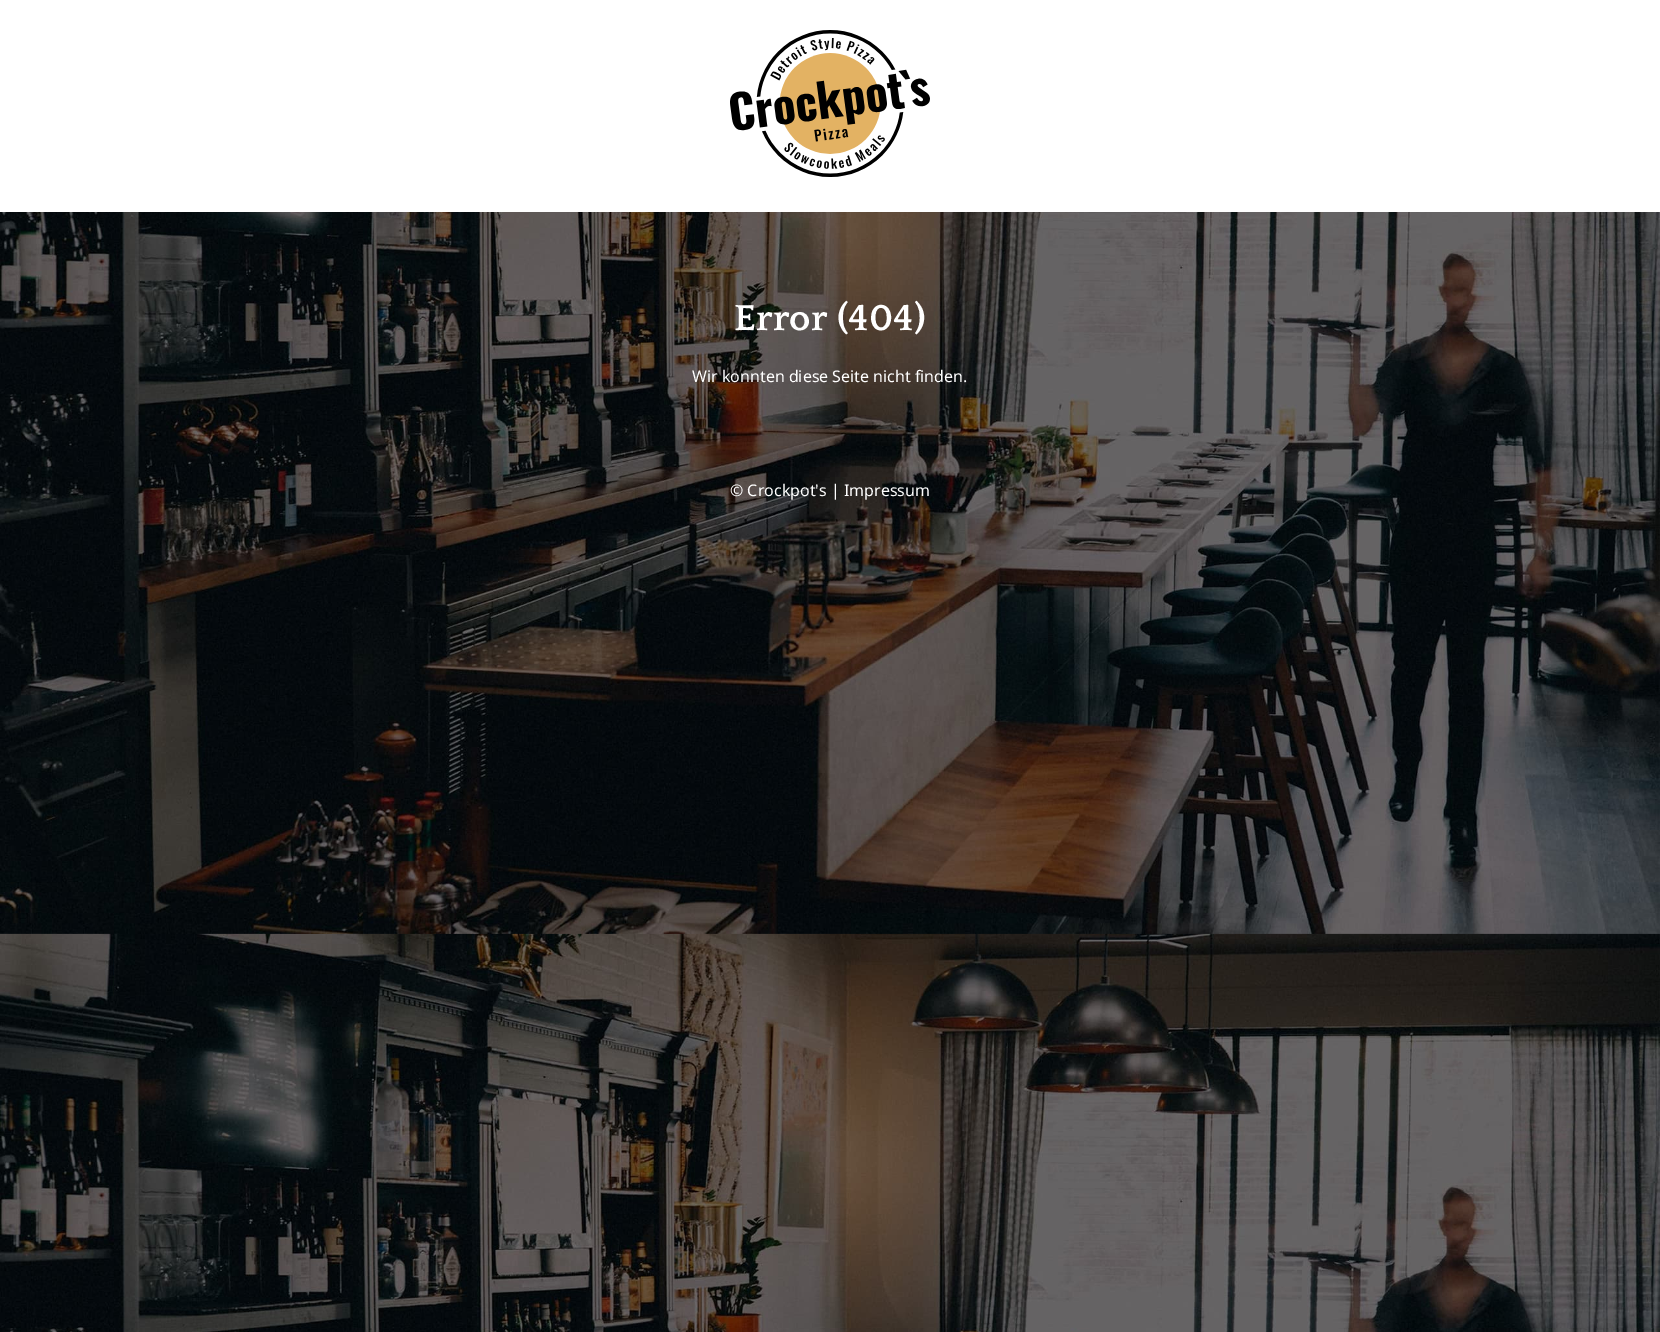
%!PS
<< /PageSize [1660 1332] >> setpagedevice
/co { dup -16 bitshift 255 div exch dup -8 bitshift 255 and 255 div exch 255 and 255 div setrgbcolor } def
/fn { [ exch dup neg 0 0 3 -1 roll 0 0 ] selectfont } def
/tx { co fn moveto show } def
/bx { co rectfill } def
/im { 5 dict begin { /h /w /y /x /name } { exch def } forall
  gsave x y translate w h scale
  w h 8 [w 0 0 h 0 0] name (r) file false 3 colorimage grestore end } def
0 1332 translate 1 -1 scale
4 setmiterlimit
0 0 1660 1332 16#FFFFFF bx
(media/1.raw) 0 212 1660 1120 im
(media/2.raw) 730 30 200 147 im
(Error \(404\)) 734 330 /Quattrocento-Bold 38 16#FFFFFF tx
(Wir konnten diese Seite nicht finden.) 692 382 /NotoSans-Regular 16 16#FFFFFF tx
(© Crockpot's | Impressum) 730 496 /NotoSans-Regular 16 16#FFFFFF tx
showpage
